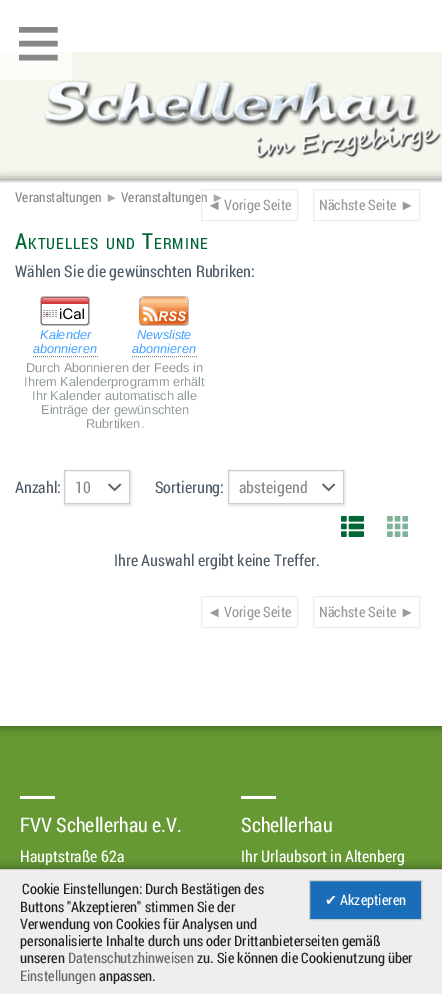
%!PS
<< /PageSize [442 994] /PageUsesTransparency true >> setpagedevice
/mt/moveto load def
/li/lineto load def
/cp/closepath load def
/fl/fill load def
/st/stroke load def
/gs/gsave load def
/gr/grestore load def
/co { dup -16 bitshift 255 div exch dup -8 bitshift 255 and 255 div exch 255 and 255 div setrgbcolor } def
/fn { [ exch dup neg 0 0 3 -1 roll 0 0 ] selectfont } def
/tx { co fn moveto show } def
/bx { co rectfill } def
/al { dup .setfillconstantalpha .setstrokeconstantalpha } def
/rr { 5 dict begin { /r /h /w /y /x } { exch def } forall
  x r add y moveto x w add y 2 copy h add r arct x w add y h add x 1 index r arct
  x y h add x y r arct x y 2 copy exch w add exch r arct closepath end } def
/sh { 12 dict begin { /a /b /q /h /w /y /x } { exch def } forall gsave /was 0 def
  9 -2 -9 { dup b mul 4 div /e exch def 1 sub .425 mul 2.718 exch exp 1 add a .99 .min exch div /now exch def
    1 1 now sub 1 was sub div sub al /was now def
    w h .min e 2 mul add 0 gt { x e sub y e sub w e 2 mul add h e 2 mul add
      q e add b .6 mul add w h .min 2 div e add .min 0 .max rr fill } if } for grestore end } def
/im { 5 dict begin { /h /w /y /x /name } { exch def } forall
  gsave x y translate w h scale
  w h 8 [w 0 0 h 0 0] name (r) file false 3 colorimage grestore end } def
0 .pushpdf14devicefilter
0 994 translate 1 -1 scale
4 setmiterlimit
0 0 442 994 16#FFFFFF bx
0 52 442 128 16#F4F7EE bx
0 52 72 28 16#FBFCF8 bx
0 726 442 143 16#669933 bx
16#000000 co
0 180 442 546 0 5 .5 sh
0 180 442 546 16#FFFFFF bx
gs
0 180 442 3 rectclip
16#000000 co
0 0 442 180 0 2 .5 sh
gr
(media/1.raw) 44 80 398 79 im
16#EEEEEE co
313.5 189.5 106 31 rectstroke
16#888888 co
[1 1] 0 setdash
33 356.5 mt 98 356.5 li st
(media/2.raw) 40 296 50 30 im
132 356.5 mt 197 356.5 li st
(media/3.raw) 139 296 50 30 im
gs
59 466 mt 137 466 li 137 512 li 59 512 li cp 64 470 mt 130 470 li 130 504 li 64 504 li cp eoclip newpath
16#000000 co
65 472 66 34 0 1.5 .1 sh
gr
(media/4.raw) 107 483 15 9 im
16#CCCCCC co
[] 0 setdash
64.5 470.5 65 33 rectstroke
gs
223 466 mt 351 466 li 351 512 li 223 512 li cp 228 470 mt 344 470 li 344 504 li 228 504 li cp eoclip newpath
16#000000 co
229 472 116 34 0 1.5 .1 sh
gr
(media/4.raw) 321 483 15 9 im
228.5 470.5 115 33 rectstroke
(media/5.raw) 341 515 23 22 im
(media/6.raw) 387 515 22 22 im
16#EEEEEE co
201.5 596.5 96 31 rectstroke
313.5 596.5 106 31 rectstroke
20 796 35 3 16#FFFFFF bx
241 796 35 3 16#FFFFFF bx
16#000000 co
0 869 442 125 0 5 .5 sh
0 870 442 124 16#EEEEEE bx
0 869 442 1 16#CCCCCC bx
16#1A6EB9 co
309.5 880.5 mt 421.5 880.5 li 421.5 919.5 li 309.5 919.5 li cp gs fl gr
16#CCCCCC co
st
(≡) 15 70 /LiberationSans-Regular 80 16#888888 tx
(Veranstaltungen) 15 202 /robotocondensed-Regular 13.5 16#888888 tx
(►) 105 202 /LiberationSans-Regular 13.5 16#AAAAAA tx
(Veranstaltungen) 121 202 /robotocondensed-Regular 13.5 16#888888 tx
(►) 211 202 /LiberationSans-Regular 13.5 16#AAAAAA tx
16#EEEEEE co
201.5 189.5 96 31 rectstroke
(◄) 207 210 /LiberationSans-Regular 14.4 16#999999 tx
(Vorige Seite) 224 210 /robotocondensed-Regular 14.4 16#999999 tx
(Nächste Seite) 319 210 /robotocondensed-Regular 14.4 16#999999 tx
(►) 400 210 /LiberationSans-Regular 14.4 16#999999 tx
/robotocondensed-Regular 22 fn
16#006633 co
15 249 mt 1 0 (A) ashow
/robotocondensed-Regular 15.5 fn
28 249 mt 1 0 (KTUELLES) ashow
106 249 mt 1 0 (UND) ashow
/robotocondensed-Regular 22 fn
142 249 mt 1 0 (T) ashow
/robotocondensed-Regular 15.5 fn
154 249 mt 1 0 (ERMINE) ashow
(Wählen Sie die gewünschten Rubriken:) 15 277 /robotocondensed-Regular 16 16#505D68 tx
(Kalender) 40 339 /LiberationSans-Italic 12.75 16#409FFF tx
(abonnieren) 33 353 /LiberationSans-Italic 12.75 16#409FFF tx
(Newsliste) 137 339 /LiberationSans-Italic 12.75 16#409FFF tx
(abonnieren) 132 353 /LiberationSans-Italic 12.75 16#409FFF tx
(Durch Abonnieren der Feeds in) 26 372 /LiberationSans-Regular 12.75 16#909999 tx
(Ihrem Kalenderprogramm erhält) 24 386 /LiberationSans-Regular 12.75 16#909999 tx
(Ihr Kalender automatisch alle) 32 400 /LiberationSans-Regular 12.75 16#909999 tx
(Einträge der gewünschten) 41 414 /LiberationSans-Regular 12.75 16#909999 tx
(Rubrtiken.) 86 428 /LiberationSans-Regular 12.75 16#909999 tx
(Anzahl:) 15 493 /robotocondensed-Regular 16 16#505D68 tx
(10) 75 493 /robotocondensed-Regular 16 16#888888 tx
(Sortierung:) 155 493 /robotocondensed-Regular 16 16#505D68 tx
(absteigend) 239 493 /robotocondensed-Regular 16 16#888888 tx
(Ihre Auswahl ergibt keine Treffer.) 114 566 /robotocondensed-Regular 16 16#505D68 tx
(◄) 207 617 /LiberationSans-Regular 14.4 16#999999 tx
(Vorige Seite) 224 617 /robotocondensed-Regular 14.4 16#999999 tx
(Nächste Seite) 319 617 /robotocondensed-Regular 14.4 16#999999 tx
(►) 400 617 /LiberationSans-Regular 14.4 16#999999 tx
(FVV Schellerhau e.V.) 20 832 /robotocondensed-Regular 20 16#FFFFFF tx
(Hauptstraße 62a) 20 862 /robotocondensed-Regular 16 16#FFFFFF tx
(Schellerhau) 241 832 /robotocondensed-Regular 20 16#FFFFFF tx
(Ihr Urlaubsort in Altenberg) 241 862 /robotocondensed-Regular 16 16#FFFFFF tx
(Cookie Einstellungen: Durch Bestätigen des) 22 894 /robotocondensed-Regular 14.4 16#222222 tx
(Buttons "Akzeptieren" stimmen Sie der) 20 912 /robotocondensed-Regular 14.4 16#222222 tx
(✔) 325 905 /DejaVuSans-Regular 14.4 16#FFFFFF tx
(Akzeptieren) 340 905 /robotocondensed-Regular 14.4 16#FFFFFF tx
(Verwendung von Cookies für Analysen und) 20 929 /robotocondensed-Regular 14.4 16#222222 tx
(personalisierte Inhalte durch uns oder Drittanbieterseiten gemäß) 20 946 /robotocondensed-Regular 14.4 16#222222 tx
(unseren) 20 963 /robotocondensed-Regular 14.4 16#222222 tx
(Datenschutzhinweisen) 68 963 /robotocondensed-Regular 14.4 16#666666 tx
(zu. Sie können die Cookienutzung über) 197 963 /robotocondensed-Regular 14.4 16#222222 tx
(Einstellungen) 20 981 /robotocondensed-Regular 14.4 16#666666 tx
(anpassen.) 99 981 /robotocondensed-Regular 14.4 16#222222 tx
.poppdf14devicefilter showpage
